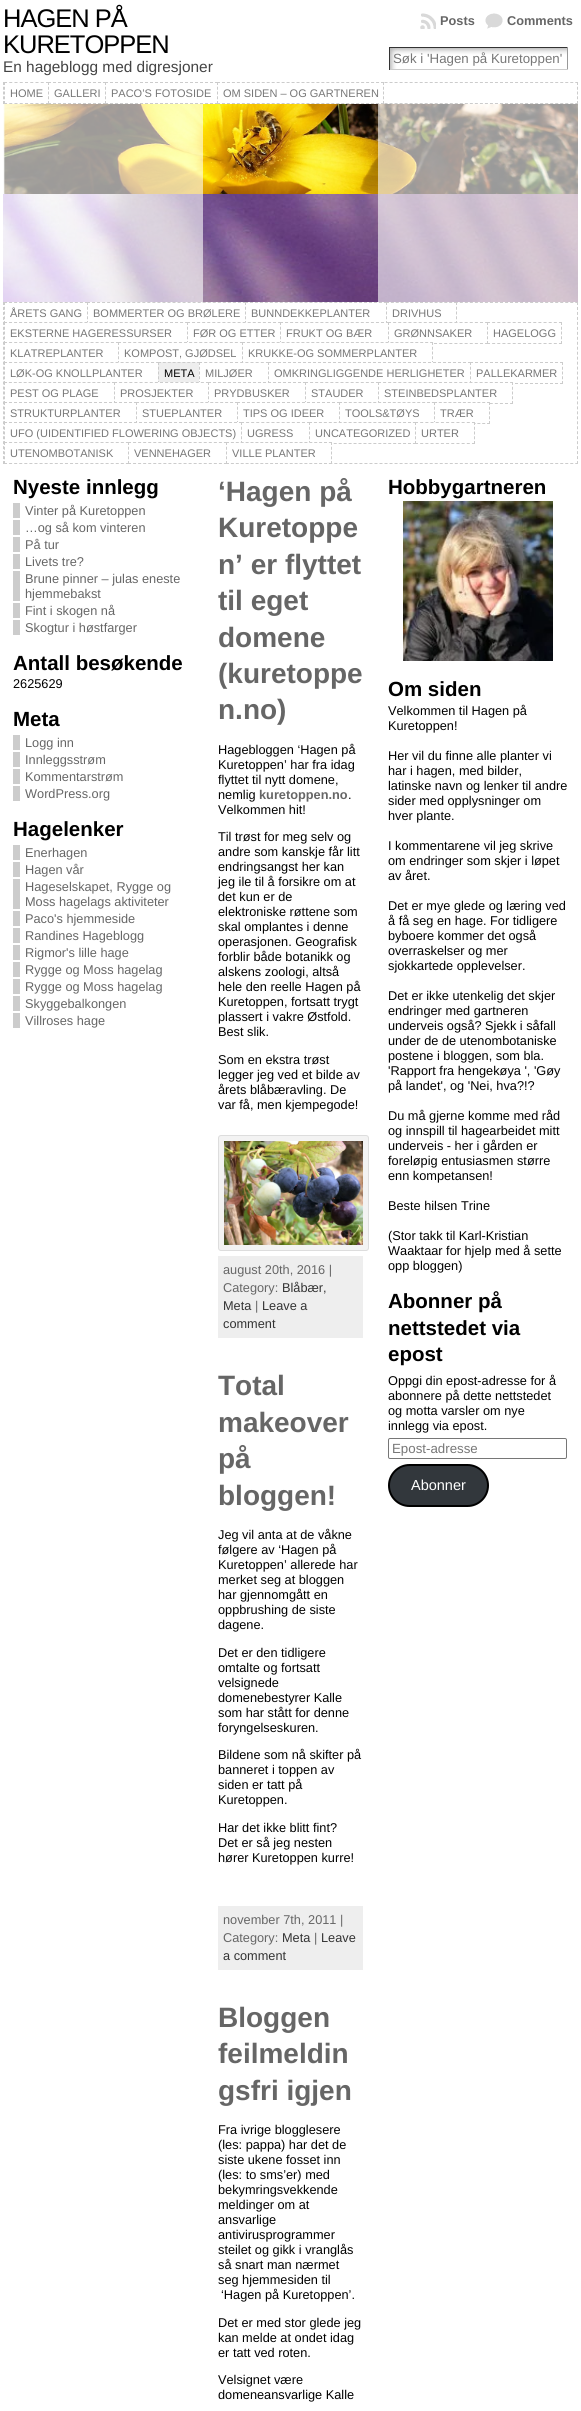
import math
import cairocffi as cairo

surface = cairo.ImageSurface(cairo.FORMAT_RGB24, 581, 2411)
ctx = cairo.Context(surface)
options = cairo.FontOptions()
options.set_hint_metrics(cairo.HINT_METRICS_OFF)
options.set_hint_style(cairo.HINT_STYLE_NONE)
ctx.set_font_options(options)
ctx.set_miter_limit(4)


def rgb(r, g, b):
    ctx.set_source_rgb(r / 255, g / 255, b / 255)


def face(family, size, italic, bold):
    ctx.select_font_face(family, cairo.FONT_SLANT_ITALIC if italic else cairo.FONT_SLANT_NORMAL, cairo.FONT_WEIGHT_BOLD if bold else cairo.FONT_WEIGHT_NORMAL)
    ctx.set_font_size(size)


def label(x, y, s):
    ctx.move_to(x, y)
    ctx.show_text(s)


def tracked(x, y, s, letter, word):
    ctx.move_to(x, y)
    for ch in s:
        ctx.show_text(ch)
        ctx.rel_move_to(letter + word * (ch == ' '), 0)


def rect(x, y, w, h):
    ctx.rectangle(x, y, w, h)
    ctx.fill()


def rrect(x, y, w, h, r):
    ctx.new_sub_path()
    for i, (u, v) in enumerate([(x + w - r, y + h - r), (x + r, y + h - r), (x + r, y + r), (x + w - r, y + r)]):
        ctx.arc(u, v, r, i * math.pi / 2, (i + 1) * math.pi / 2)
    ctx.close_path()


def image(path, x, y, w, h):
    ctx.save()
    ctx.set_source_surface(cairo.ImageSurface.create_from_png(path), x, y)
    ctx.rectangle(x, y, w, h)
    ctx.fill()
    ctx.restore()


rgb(255, 255, 255)
ctx.paint()
face('Liberation Sans', 25.5, 0, 0)
rgb(0, 0, 0)
tracked(3, 27, 'HAGEN PÅ', -1, 0)
tracked(3, 53, 'KURETOPPEN', -1, 0)
face('Liberation Sans', 15.4, 0, 0)
rgb(68, 68, 68)
label(3, 72, 'En hageblogg med digresjoner')
image('image0.png', 420, 13, 16, 16)
face('Liberation Sans', 12.75, 0, 1)
rgb(102, 102, 102)
label(440, 25, 'Posts')
image('image1.png', 485, 13, 18, 16)
label(507, 25, 'Comments')
image('image2.png', 390, 48, 177, 21)
rgb(51, 51, 51)
rect(389, 47, 179, 1)
rgb(153, 153, 153)
rect(567, 47, 1, 23)
rgb(204, 204, 204)
rect(389, 69, 179, 1)
rgb(51, 51, 51)
rect(389, 47, 1, 23)
face('Liberation Sans', 13.3, 0, 0)
rgb(119, 119, 119)
label(393, 63, 'Søk i \'Hagen på Kuretoppen\'')
ctx.new_path()
ctx.move_to(3, 82.5)
ctx.line_to(578, 82.5)
rgb(204, 204, 204)
ctx.set_line_width(1)
ctx.set_dash([3, 2.02])
ctx.stroke()
ctx.new_path()
ctx.move_to(577.5, 82)
ctx.line_to(577.5, 104)
ctx.set_dash([3, 1.75])
ctx.stroke()
ctx.new_path()
ctx.move_to(3, 103.5)
ctx.line_to(578, 103.5)
ctx.set_dash([3, 2.02])
ctx.stroke()
ctx.new_path()
ctx.move_to(3.5, 82)
ctx.line_to(3.5, 104)
ctx.set_dash([3, 1.75])
ctx.stroke()
rgb(255, 255, 255)
rect(4, 82, 43, 22)
ctx.new_path()
ctx.move_to(4, 82.5)
ctx.line_to(49, 82.5)
ctx.move_to(4, 103.5)
ctx.line_to(49, 103.5)
rgb(204, 204, 204)
ctx.set_dash([3, 2.25])
ctx.stroke()
ctx.new_path()
ctx.move_to(4.5, 82)
ctx.line_to(4.5, 104)
ctx.set_dash([3, 1.75])
ctx.stroke()
face('Liberation Sans', 11, 0, 0)
rgb(119, 119, 119)
label(10, 97, 'HOME')
rgb(255, 255, 255)
rect(48, 82, 57, 22)
ctx.new_path()
ctx.move_to(48, 82.5)
ctx.line_to(106, 82.5)
ctx.move_to(48, 103.5)
ctx.line_to(106, 103.5)
rgb(204, 204, 204)
ctx.set_dash([3, 2])
ctx.stroke()
ctx.new_path()
ctx.move_to(48.5, 82)
ctx.line_to(48.5, 104)
ctx.set_dash([3, 1.75])
ctx.stroke()
rgb(119, 119, 119)
label(54, 97, 'GALLERI')
rgb(255, 255, 255)
rect(105, 82, 112, 22)
ctx.new_path()
ctx.move_to(105, 82.5)
ctx.line_to(218, 82.5)
rgb(204, 204, 204)
ctx.set_dash([3, 2])
ctx.stroke()
ctx.new_path()
ctx.move_to(105, 103.5)
ctx.line_to(218, 103.5)
ctx.stroke()
ctx.new_path()
ctx.move_to(105.5, 82)
ctx.line_to(105.5, 104)
ctx.set_dash([3, 1.75])
ctx.stroke()
rgb(119, 119, 119)
label(111, 97, 'PACO’S FOTOSIDE')
rgb(255, 255, 255)
rect(217, 82, 166, 22)
ctx.new_path()
ctx.move_to(217, 82.5)
ctx.line_to(384, 82.5)
rgb(204, 204, 204)
ctx.set_dash([3, 1.97])
ctx.stroke()
ctx.new_path()
ctx.move_to(383.5, 82)
ctx.line_to(383.5, 104)
ctx.set_dash([3, 1.75])
ctx.stroke()
ctx.new_path()
ctx.move_to(217, 103.5)
ctx.line_to(384, 103.5)
ctx.set_dash([3, 1.97])
ctx.stroke()
ctx.new_path()
ctx.move_to(217.5, 82)
ctx.line_to(217.5, 104)
ctx.set_dash([3, 1.75])
ctx.stroke()
rgb(119, 119, 119)
label(223, 97, 'OM SIDEN – OG GARTNEREN')
image('image3.png', 3, 194, 575, 108)
image('image4.png', 3, 104, 575, 90)
ctx.set_source_rgba(1, 1, 1, 0.6)
rect(3, 104, 200, 198)
rect(378, 104, 200, 198)
ctx.new_path()
ctx.move_to(3, 302.5)
ctx.line_to(578, 302.5)
rgb(204, 204, 204)
ctx.set_dash([3, 2.02])
ctx.stroke()
ctx.new_path()
ctx.move_to(577.5, 302)
ctx.line_to(577.5, 464)
ctx.set_dash([3, 1.97])
ctx.stroke()
ctx.new_path()
ctx.move_to(3, 463.5)
ctx.line_to(578, 463.5)
ctx.set_dash([3, 2.02])
ctx.stroke()
ctx.new_path()
ctx.move_to(3.5, 302)
ctx.line_to(3.5, 464)
ctx.set_dash([3, 1.97])
ctx.stroke()
rgb(255, 255, 255)
rect(4, 302, 83, 1)
ctx.new_path()
ctx.move_to(4, 302.5)
ctx.line_to(88, 302.5)
rgb(204, 204, 204)
ctx.set_dash([3, 2.06])
ctx.stroke()
ctx.new_path()
ctx.move_to(4.5, 302)
ctx.line_to(4.5, 324)
ctx.set_dash([3, 1.75])
ctx.stroke()
rgb(119, 119, 119)
label(10, 317, 'ÅRETS GANG')
rgb(255, 255, 255)
rect(87, 302, 158, 1)
ctx.new_path()
ctx.move_to(87, 302.5)
ctx.line_to(246, 302.5)
rgb(204, 204, 204)
ctx.set_dash([3, 2.03])
ctx.stroke()
ctx.new_path()
ctx.move_to(87.5, 302)
ctx.line_to(87.5, 324)
ctx.set_dash([3, 1.75])
ctx.stroke()
rgb(119, 119, 119)
label(93, 317, 'BOMMERTER OG BRØLERE')
rgb(255, 255, 255)
rect(245, 302, 141, 1)
ctx.new_path()
ctx.move_to(245, 302.5)
ctx.line_to(387, 302.5)
rgb(204, 204, 204)
ctx.set_dash([3, 1.96])
ctx.stroke()
ctx.new_path()
ctx.move_to(245.5, 302)
ctx.line_to(245.5, 324)
ctx.set_dash([3, 1.75])
ctx.stroke()
rgb(119, 119, 119)
label(251, 317, 'BUNNDEKKEPLANTER')
rgb(255, 255, 255)
rect(386, 302, 71, 1)
ctx.new_path()
ctx.move_to(386, 302.5)
ctx.line_to(457, 302.5)
rgb(204, 204, 204)
ctx.set_dash([3, 1.86])
ctx.stroke()
ctx.new_path()
ctx.move_to(456.5, 302)
ctx.line_to(456.5, 324)
ctx.set_dash([3, 1.75])
ctx.stroke()
ctx.new_path()
ctx.move_to(386.5, 302)
ctx.line_to(386.5, 324)
ctx.stroke()
rgb(119, 119, 119)
label(392, 317, 'DRIVHUS')
rgb(255, 255, 255)
rect(4, 322, 84, 2)
ctx.new_path()
ctx.move_to(4, 322.5)
ctx.line_to(188, 322.5)
rgb(204, 204, 204)
ctx.set_dash([3, 2.03])
ctx.stroke()
ctx.new_path()
ctx.move_to(4.5, 322)
ctx.line_to(4.5, 344)
ctx.set_dash([3, 1.75])
ctx.stroke()
rgb(119, 119, 119)
label(10, 337, 'EKSTERNE HAGERESSURSER')
rgb(255, 255, 255)
rect(187, 322, 59, 2)
ctx.new_path()
ctx.move_to(187, 322.5)
ctx.line_to(281, 322.5)
rgb(204, 204, 204)
ctx.set_dash([3, 2.06])
ctx.stroke()
ctx.new_path()
ctx.move_to(187.5, 322)
ctx.line_to(187.5, 344)
ctx.set_dash([3, 1.75])
ctx.stroke()
rgb(119, 119, 119)
label(193, 337, 'FØR OG ETTER')
rgb(255, 255, 255)
rect(280, 322, 107, 2)
ctx.new_path()
ctx.move_to(280, 322.5)
ctx.line_to(389, 322.5)
rgb(204, 204, 204)
ctx.set_dash([3, 2.05])
ctx.stroke()
ctx.new_path()
ctx.move_to(280.5, 322)
ctx.line_to(280.5, 344)
ctx.set_dash([3, 1.75])
ctx.stroke()
rgb(119, 119, 119)
label(286, 337, 'FRUKT OG BÆR')
rgb(255, 255, 255)
rect(388, 322, 69, 2)
ctx.new_path()
ctx.move_to(388, 322.5)
ctx.line_to(488, 322.5)
rgb(204, 204, 204)
ctx.set_dash([3, 2.11])
ctx.stroke()
ctx.new_path()
ctx.move_to(388, 343.5)
ctx.line_to(488, 343.5)
ctx.stroke()
ctx.new_path()
ctx.move_to(388.5, 322)
ctx.line_to(388.5, 344)
ctx.set_dash([3, 1.75])
ctx.stroke()
rgb(119, 119, 119)
label(394, 337, 'GRØNNSAKER')
rgb(255, 255, 255)
rect(487, 322, 1, 22)
ctx.new_path()
ctx.move_to(487, 322.5)
ctx.line_to(562, 322.5)
rgb(204, 204, 204)
ctx.set_dash([3, 2.14])
ctx.stroke()
ctx.new_path()
ctx.move_to(561.5, 322)
ctx.line_to(561.5, 344)
ctx.set_dash([3, 1.75])
ctx.stroke()
ctx.new_path()
ctx.move_to(487, 343.5)
ctx.line_to(562, 343.5)
ctx.set_dash([3, 2.14])
ctx.stroke()
ctx.new_path()
ctx.move_to(487.5, 322)
ctx.line_to(487.5, 344)
ctx.set_dash([3, 1.75])
ctx.stroke()
rgb(119, 119, 119)
label(493, 337, 'HAGELOGG')
rgb(255, 255, 255)
rect(4, 342, 1, 2)
ctx.new_path()
ctx.move_to(4, 342.5)
ctx.line_to(119, 342.5)
rgb(204, 204, 204)
ctx.set_dash([3, 2.09])
ctx.stroke()
ctx.new_path()
ctx.move_to(4.5, 342)
ctx.line_to(4.5, 364)
ctx.set_dash([3, 1.75])
ctx.stroke()
rgb(119, 119, 119)
label(10, 357, 'KLATREPLANTER')
rgb(255, 255, 255)
rect(118, 342, 70, 2)
ctx.new_path()
ctx.move_to(118, 342.5)
ctx.line_to(243, 342.5)
rgb(204, 204, 204)
ctx.set_dash([3, 2.08])
ctx.stroke()
ctx.new_path()
ctx.move_to(118.5, 342)
ctx.line_to(118.5, 364)
ctx.set_dash([3, 1.75])
ctx.stroke()
rgb(119, 119, 119)
label(124, 357, 'KOMPOST, GJØDSEL')
rgb(255, 255, 255)
rect(242, 342, 190, 2)
ctx.new_path()
ctx.move_to(242, 342.5)
ctx.line_to(433, 342.5)
rgb(204, 204, 204)
ctx.set_dash([3, 1.95])
ctx.stroke()
ctx.new_path()
ctx.move_to(432.5, 342)
ctx.line_to(432.5, 364)
ctx.set_dash([3, 1.75])
ctx.stroke()
ctx.new_path()
ctx.move_to(242.5, 342)
ctx.line_to(242.5, 364)
ctx.stroke()
rgb(119, 119, 119)
label(248, 357, 'KRUKKE-OG SOMMERPLANTER')
rgb(255, 255, 255)
rect(4, 362, 115, 2)
ctx.new_path()
ctx.move_to(4, 362.5)
ctx.line_to(159, 362.5)
rgb(204, 204, 204)
ctx.set_dash([3, 2.07])
ctx.stroke()
ctx.new_path()
ctx.move_to(4.5, 362)
ctx.line_to(4.5, 384)
ctx.set_dash([3, 1.75])
ctx.stroke()
rgb(119, 119, 119)
label(10, 377, 'LØK-OG KNOLLPLANTER')
rgb(238, 238, 238)
rect(158, 362, 41, 20)
ctx.new_path()
ctx.move_to(158, 362.5)
ctx.line_to(200, 362.5)
rgb(204, 204, 204)
ctx.set_dash([3, 1.88])
ctx.stroke()
ctx.new_path()
ctx.move_to(158.5, 362)
ctx.line_to(158.5, 384)
ctx.set_dash([3, 1.75])
ctx.stroke()
rgb(0, 0, 0)
label(164, 377, 'META')
rgb(255, 255, 255)
rect(199, 362, 44, 2)
ctx.new_path()
ctx.move_to(199, 362.5)
ctx.line_to(269, 362.5)
rgb(204, 204, 204)
ctx.set_dash([3, 2.15])
ctx.stroke()
ctx.new_path()
ctx.move_to(199.5, 362)
ctx.line_to(199.5, 384)
ctx.set_dash([3, 1.75])
ctx.stroke()
rgb(119, 119, 119)
label(205, 377, 'MILJØER')
rgb(255, 255, 255)
rect(268, 362, 165, 2)
ctx.new_path()
ctx.move_to(268, 362.5)
ctx.line_to(471, 362.5)
rgb(204, 204, 204)
ctx.set_dash([3, 2])
ctx.stroke()
ctx.new_path()
ctx.move_to(268.5, 362)
ctx.line_to(268.5, 384)
ctx.set_dash([3, 1.75])
ctx.stroke()
rgb(119, 119, 119)
label(274, 377, 'OMKRINGLIGGENDE HERLIGHETER')
rgb(255, 255, 255)
rect(470, 362, 1, 1)
ctx.new_path()
ctx.move_to(470, 362.5)
ctx.line_to(563, 362.5)
rgb(204, 204, 204)
ctx.set_dash([3, 2])
ctx.stroke()
ctx.new_path()
ctx.move_to(562.5, 362)
ctx.line_to(562.5, 384)
ctx.set_dash([3, 1.75])
ctx.stroke()
ctx.new_path()
ctx.move_to(470, 383.5)
ctx.line_to(563, 383.5)
ctx.set_dash([3, 2])
ctx.stroke()
ctx.new_path()
ctx.move_to(470.5, 362)
ctx.line_to(470.5, 384)
ctx.set_dash([3, 1.75])
ctx.stroke()
rgb(119, 119, 119)
label(476, 377, 'PALLEKARMER')
rgb(255, 255, 255)
rect(4, 382, 1, 2)
ctx.new_path()
ctx.move_to(4, 382.5)
ctx.line_to(115, 382.5)
rgb(204, 204, 204)
ctx.set_dash([3, 1.91])
ctx.stroke()
ctx.new_path()
ctx.move_to(4.5, 382)
ctx.line_to(4.5, 404)
ctx.set_dash([3, 1.75])
ctx.stroke()
rgb(119, 119, 119)
label(10, 397, 'PEST OG PLAGE')
rgb(255, 255, 255)
rect(114, 382, 86, 2)
ctx.new_path()
ctx.move_to(114, 382.5)
ctx.line_to(209, 382.5)
rgb(204, 204, 204)
ctx.set_dash([3, 2.11])
ctx.stroke()
ctx.new_path()
ctx.move_to(114.5, 382)
ctx.line_to(114.5, 404)
ctx.set_dash([3, 1.75])
ctx.stroke()
rgb(119, 119, 119)
label(120, 397, 'PROSJEKTER')
rgb(255, 255, 255)
rect(208, 382, 61, 2)
ctx.new_path()
ctx.move_to(208, 382.5)
ctx.line_to(306, 382.5)
rgb(204, 204, 204)
ctx.set_dash([3, 2])
ctx.stroke()
ctx.new_path()
ctx.move_to(208.5, 382)
ctx.line_to(208.5, 404)
ctx.set_dash([3, 1.75])
ctx.stroke()
rgb(119, 119, 119)
label(214, 397, 'PRYDBUSKER')
rgb(255, 255, 255)
rect(305, 382, 1, 1)
ctx.new_path()
ctx.move_to(305, 382.5)
ctx.line_to(379, 382.5)
rgb(204, 204, 204)
ctx.set_dash([3, 2.07])
ctx.stroke()
ctx.new_path()
ctx.move_to(305.5, 382)
ctx.line_to(305.5, 404)
ctx.set_dash([3, 1.75])
ctx.stroke()
rgb(119, 119, 119)
label(311, 397, 'STAUDER')
rgb(255, 255, 255)
rect(378, 382, 135, 2)
ctx.new_path()
ctx.move_to(378, 382.5)
ctx.line_to(513, 382.5)
rgb(204, 204, 204)
ctx.set_dash([3, 2.08])
ctx.stroke()
ctx.new_path()
ctx.move_to(512.5, 382)
ctx.line_to(512.5, 404)
ctx.set_dash([3, 1.75])
ctx.stroke()
ctx.new_path()
ctx.move_to(378, 403.5)
ctx.line_to(513, 403.5)
ctx.set_dash([3, 2.08])
ctx.stroke()
ctx.new_path()
ctx.move_to(378.5, 382)
ctx.line_to(378.5, 404)
ctx.set_dash([3, 1.75])
ctx.stroke()
rgb(119, 119, 119)
label(384, 397, 'STEINBEDSPLANTER')
rgb(255, 255, 255)
rect(4, 402, 111, 2)
ctx.new_path()
ctx.move_to(4, 402.5)
ctx.line_to(137, 402.5)
rgb(204, 204, 204)
ctx.set_dash([3, 2])
ctx.stroke()
ctx.new_path()
ctx.move_to(4.5, 402)
ctx.line_to(4.5, 424)
ctx.set_dash([3, 1.75])
ctx.stroke()
rgb(119, 119, 119)
label(10, 417, 'STRUKTURPLANTER')
rgb(255, 255, 255)
rect(136, 402, 73, 2)
ctx.new_path()
ctx.move_to(136, 402.5)
ctx.line_to(238, 402.5)
rgb(204, 204, 204)
ctx.set_dash([3, 1.95])
ctx.stroke()
ctx.new_path()
ctx.move_to(136.5, 402)
ctx.line_to(136.5, 424)
ctx.set_dash([3, 1.75])
ctx.stroke()
rgb(119, 119, 119)
label(142, 417, 'STUEPLANTER')
rgb(255, 255, 255)
rect(237, 402, 69, 2)
ctx.new_path()
ctx.move_to(237, 402.5)
ctx.line_to(340, 402.5)
rgb(204, 204, 204)
ctx.set_dash([3, 2])
ctx.stroke()
ctx.new_path()
ctx.move_to(237.5, 402)
ctx.line_to(237.5, 424)
ctx.set_dash([3, 1.75])
ctx.stroke()
rgb(119, 119, 119)
label(243, 417, 'TIPS OG IDEER')
rgb(255, 255, 255)
rect(339, 402, 95, 2)
ctx.new_path()
ctx.move_to(339, 402.5)
ctx.line_to(435, 402.5)
rgb(204, 204, 204)
ctx.set_dash([3, 1.89])
ctx.stroke()
ctx.new_path()
ctx.move_to(339.5, 402)
ctx.line_to(339.5, 424)
ctx.set_dash([3, 1.75])
ctx.stroke()
rgb(119, 119, 119)
label(345, 417, 'TOOLS&TØYS')
rgb(255, 255, 255)
rect(434, 402, 56, 2)
ctx.new_path()
ctx.move_to(434, 402.5)
ctx.line_to(490, 402.5)
rgb(204, 204, 204)
ctx.set_dash([3, 1.82])
ctx.stroke()
ctx.new_path()
ctx.move_to(489.5, 402)
ctx.line_to(489.5, 424)
ctx.set_dash([3, 1.75])
ctx.stroke()
ctx.new_path()
ctx.move_to(434, 423.5)
ctx.line_to(490, 423.5)
ctx.set_dash([3, 1.82])
ctx.stroke()
ctx.new_path()
ctx.move_to(434.5, 402)
ctx.line_to(434.5, 424)
ctx.set_dash([3, 1.75])
ctx.stroke()
rgb(119, 119, 119)
label(440, 417, 'TRÆR')
rgb(255, 255, 255)
rect(4, 422, 234, 2)
ctx.new_path()
ctx.move_to(4, 422.5)
ctx.line_to(242, 422.5)
rgb(204, 204, 204)
ctx.set_dash([3, 2])
ctx.stroke()
ctx.new_path()
ctx.move_to(4.5, 422)
ctx.line_to(4.5, 444)
ctx.set_dash([3, 1.75])
ctx.stroke()
rgb(119, 119, 119)
label(10, 437, 'UFO (UIDENTIFIED FLOWERING OBJECTS)')
rgb(255, 255, 255)
rect(241, 422, 1, 1)
ctx.new_path()
ctx.move_to(241, 422.5)
ctx.line_to(310, 422.5)
rgb(204, 204, 204)
ctx.set_dash([3, 2.08])
ctx.stroke()
ctx.new_path()
ctx.move_to(241.5, 422)
ctx.line_to(241.5, 444)
ctx.set_dash([3, 1.75])
ctx.stroke()
rgb(119, 119, 119)
label(247, 437, 'UGRESS')
rgb(255, 255, 255)
rect(309, 422, 31, 2)
ctx.new_path()
ctx.move_to(309, 422.5)
ctx.line_to(416, 422.5)
rgb(204, 204, 204)
ctx.set_dash([3, 1.95])
ctx.stroke()
ctx.new_path()
ctx.move_to(309, 443.5)
ctx.line_to(416, 443.5)
ctx.stroke()
ctx.new_path()
ctx.move_to(309.5, 422)
ctx.line_to(309.5, 444)
ctx.set_dash([3, 1.75])
ctx.stroke()
rgb(119, 119, 119)
label(315, 437, 'UNCATEGORIZED')
rgb(255, 255, 255)
rect(415, 422, 60, 22)
ctx.new_path()
ctx.move_to(415, 422.5)
ctx.line_to(475, 422.5)
rgb(204, 204, 204)
ctx.set_dash([3, 2.18])
ctx.stroke()
ctx.new_path()
ctx.move_to(474.5, 422)
ctx.line_to(474.5, 444)
ctx.set_dash([3, 1.75])
ctx.stroke()
ctx.new_path()
ctx.move_to(415, 443.5)
ctx.line_to(475, 443.5)
ctx.set_dash([3, 2.18])
ctx.stroke()
ctx.new_path()
ctx.move_to(415.5, 422)
ctx.line_to(415.5, 444)
ctx.set_dash([3, 1.75])
ctx.stroke()
rgb(119, 119, 119)
label(421, 437, 'URTER')
rgb(255, 255, 255)
rect(4, 442, 123, 22)
ctx.new_path()
ctx.move_to(4, 442.5)
ctx.line_to(129, 442.5)
rgb(204, 204, 204)
ctx.set_dash([3, 2.08])
ctx.stroke()
ctx.new_path()
ctx.move_to(4, 463.5)
ctx.line_to(129, 463.5)
ctx.stroke()
ctx.new_path()
ctx.move_to(4.5, 442)
ctx.line_to(4.5, 464)
ctx.set_dash([3, 1.75])
ctx.stroke()
rgb(119, 119, 119)
label(10, 457, 'UTENOMBOTANISK')
rgb(255, 255, 255)
rect(128, 442, 98, 22)
ctx.new_path()
ctx.move_to(128, 442.5)
ctx.line_to(227, 442.5)
rgb(204, 204, 204)
ctx.set_dash([3, 2.05])
ctx.stroke()
ctx.new_path()
ctx.move_to(128, 463.5)
ctx.line_to(227, 463.5)
ctx.stroke()
ctx.new_path()
ctx.move_to(128.5, 442)
ctx.line_to(128.5, 464)
ctx.set_dash([3, 1.75])
ctx.stroke()
rgb(119, 119, 119)
label(134, 457, 'VENNEHAGER')
rgb(255, 255, 255)
rect(226, 442, 106, 22)
ctx.new_path()
ctx.move_to(226, 442.5)
ctx.line_to(332, 442.5)
rgb(204, 204, 204)
ctx.set_dash([3, 1.9])
ctx.stroke()
ctx.new_path()
ctx.move_to(331.5, 442)
ctx.line_to(331.5, 464)
ctx.set_dash([3, 1.75])
ctx.stroke()
ctx.new_path()
ctx.move_to(226, 463.5)
ctx.line_to(332, 463.5)
ctx.set_dash([3, 1.9])
ctx.stroke()
ctx.new_path()
ctx.move_to(226.5, 442)
ctx.line_to(226.5, 464)
ctx.set_dash([3, 1.75])
ctx.stroke()
rgb(119, 119, 119)
label(232, 457, 'VILLE PLANTER')
face('Liberation Sans', 20.5, 0, 1)
rgb(0, 0, 0)
label(13, 494, 'Nyeste innlegg')
rgb(204, 204, 204)
rect(13, 503, 7, 15)
face('Liberation Sans', 12.75, 0, 0)
rgb(102, 102, 102)
label(25, 515, 'Vinter på Kuretoppen')
rgb(204, 204, 204)
rect(13, 520, 7, 15)
rgb(102, 102, 102)
label(25, 532, '…og så kom vinteren')
rgb(204, 204, 204)
rect(13, 537, 7, 15)
rgb(102, 102, 102)
label(25, 549, 'På tur')
rgb(204, 204, 204)
rect(13, 554, 7, 15)
rgb(102, 102, 102)
label(25, 566, 'Livets tre?')
rgb(204, 204, 204)
rect(13, 571, 7, 30)
rgb(102, 102, 102)
label(25, 583, 'Brune pinner – julas eneste')
label(25, 598, 'hjemmebakst')
rgb(204, 204, 204)
rect(13, 603, 7, 15)
rgb(102, 102, 102)
label(25, 615, 'Fint i skogen nå')
rgb(204, 204, 204)
rect(13, 620, 7, 15)
rgb(102, 102, 102)
label(25, 632, 'Skogtur i høstfarger')
face('Liberation Sans', 20.5, 0, 1)
rgb(0, 0, 0)
label(13, 670, 'Antall besøkende')
face('Liberation Sans', 12.75, 0, 0)
label(13, 688, '2625629')
face('Liberation Sans', 20.5, 0, 1)
label(13, 726, 'Meta')
rgb(204, 204, 204)
rect(13, 735, 7, 15)
face('Liberation Sans', 12.75, 0, 0)
rgb(102, 102, 102)
label(25, 747, 'Logg inn')
rgb(204, 204, 204)
rect(13, 752, 7, 15)
rgb(102, 102, 102)
label(25, 764, 'Innleggsstrøm')
rgb(204, 204, 204)
rect(13, 769, 7, 15)
rgb(102, 102, 102)
label(25, 781, 'Kommentarstrøm')
rgb(204, 204, 204)
rect(13, 786, 7, 15)
rgb(102, 102, 102)
label(25, 798, 'WordPress.org')
face('Liberation Sans', 20.5, 0, 1)
rgb(0, 0, 0)
label(13, 836, 'Hagelenker')
rgb(204, 204, 204)
rect(13, 845, 7, 15)
face('Liberation Sans', 12.75, 0, 0)
rgb(102, 102, 102)
label(25, 857, 'Enerhagen')
rgb(204, 204, 204)
rect(13, 862, 7, 15)
rgb(102, 102, 102)
label(25, 874, 'Hagen vår')
rgb(204, 204, 204)
rect(13, 879, 7, 30)
rgb(102, 102, 102)
label(25, 891, 'Hageselskapet, Rygge og')
label(25, 906, 'Moss hagelags aktiviteter')
rgb(204, 204, 204)
rect(13, 911, 7, 15)
rgb(102, 102, 102)
label(25, 923, 'Paco\'s hjemmeside')
rgb(204, 204, 204)
rect(13, 928, 7, 15)
rgb(102, 102, 102)
label(25, 940, 'Randines Hageblogg')
rgb(204, 204, 204)
rect(13, 945, 7, 15)
rgb(102, 102, 102)
label(25, 957, 'Rigmor\'s lille hage')
rgb(204, 204, 204)
rect(13, 962, 7, 15)
rgb(102, 102, 102)
label(25, 974, 'Rygge og Moss hagelag')
rgb(204, 204, 204)
rect(13, 979, 7, 15)
rgb(102, 102, 102)
label(25, 991, 'Rygge og Moss hagelag')
rgb(204, 204, 204)
rect(13, 996, 7, 15)
rgb(102, 102, 102)
label(25, 1008, 'Skyggebalkongen')
rgb(204, 204, 204)
rect(13, 1013, 7, 15)
rgb(102, 102, 102)
label(25, 1025, 'Villroses hage')
face('Liberation Sans', 28, 0, 1)
label(218, 501, '‘Hagen på')
label(218, 537, 'Kuretoppe')
label(218, 574, 'n’ er flyttet')
label(218, 610, 'til eget')
label(218, 647, 'domene')
label(218, 683, '(kuretoppe')
label(218, 719, 'n.no)')
face('Liberation Sans', 12.75, 0, 0)
rgb(0, 0, 0)
label(218, 754, 'Hagebloggen ‘Hagen på')
label(218, 769, 'Kuretoppen’ har fra idag')
label(218, 784, 'flyttet til nytt domene,')
label(218, 799, 'nemlig')
face('Liberation Sans', 12.75, 0, 1)
rgb(102, 102, 102)
label(259, 799, 'kuretoppen.no')
face('Liberation Sans', 12.75, 0, 0)
rgb(0, 0, 0)
label(348, 799, '.')
label(218, 814, 'Velkommen hit!')
label(218, 841, 'Til trøst for meg selv og')
label(218, 856, 'andre som kanskje får litt')
label(218, 871, 'endringsangst her kan')
label(218, 886, 'jeg ile til å forsikre om at')
label(218, 901, 'det kun er de')
label(218, 916, 'elektroniske røttene som')
label(218, 931, 'skal omplantes i denne')
label(218, 946, 'operasjonen. Geografisk')
label(218, 961, 'forblir både botanikk og')
label(218, 976, 'alskens zoologi, altså')
label(218, 991, 'hele den reelle Hagen på')
label(218, 1006, 'Kuretoppen, fortsatt trygt')
label(218, 1021, 'plassert i vakre Østfold.')
label(218, 1036, 'Best slik.')
label(218, 1064, 'Som en ekstra trøst')
label(218, 1079, 'legger jeg ved et bilde av')
label(218, 1094, 'årets blåbæravling. De')
label(218, 1109, 'var få, men kjempegode!')
rgb(243, 243, 243)
rrect(218.5, 1135.5, 150, 115, 2.5)
ctx.fill_preserve()
rgb(221, 221, 221)
ctx.set_dash([])
ctx.stroke()
image('image5.png', 224, 1141, 139, 104)
rgb(238, 238, 238)
rect(218, 1256, 145, 82)
rgb(102, 102, 102)
label(223, 1274, 'august 20th, 2016 |')
label(223, 1292, 'Category:')
rgb(51, 51, 51)
label(282, 1292, 'Blåbær,')
label(223, 1310, 'Meta')
rgb(102, 102, 102)
label(255, 1310, '|')
rgb(51, 51, 51)
label(262, 1310, 'Leave a')
label(223, 1328, 'comment')
face('Liberation Sans', 28, 0, 1)
rgb(102, 102, 102)
label(218, 1395, 'Total')
label(218, 1432, 'makeover')
label(218, 1468, 'på')
label(218, 1505, 'bloggen!')
face('Liberation Sans', 12.75, 0, 0)
rgb(0, 0, 0)
label(218, 1539, 'Jeg vil anta at de våkne')
label(218, 1554, 'følgere av ‘Hagen på')
label(218, 1569, 'Kuretoppen’ allerede har')
label(218, 1584, 'merket seg at bloggen')
label(218, 1599, 'har gjennomgått en')
label(218, 1614, 'oppbrushing de siste')
label(218, 1629, 'dagene.')
label(218, 1657, 'Det er den tidligere')
label(218, 1672, 'omtalte og fortsatt')
label(218, 1687, 'velsignede')
label(218, 1702, 'domenebestyrer Kalle')
label(218, 1717, 'som har stått for denne')
label(218, 1732, 'foryngelseskuren.')
label(218, 1759, 'Bildene som nå skifter på')
label(218, 1774, 'banneret i toppen av')
label(218, 1789, 'siden er tatt på')
label(218, 1804, 'Kuretoppen.')
label(218, 1832, 'Har det ikke blitt fint?')
label(218, 1847, 'Det er så jeg nesten')
label(218, 1862, 'hører Kuretoppen kurre!')
rgb(238, 238, 238)
rect(218, 1906, 145, 64)
rgb(102, 102, 102)
label(223, 1924, 'november 7th, 2011 |')
label(223, 1942, 'Category:')
rgb(51, 51, 51)
label(282, 1942, 'Meta')
rgb(102, 102, 102)
label(314, 1942, '|')
rgb(51, 51, 51)
label(321, 1942, 'Leave')
label(223, 1960, 'a comment')
face('Liberation Sans', 28, 0, 1)
rgb(102, 102, 102)
label(218, 2027, 'Bloggen')
label(218, 2063, 'feilmeldin')
label(218, 2100, 'gsfri igjen')
face('Liberation Sans', 12.75, 0, 0)
rgb(0, 0, 0)
label(218, 2134, 'Fra ivrige blogglesere')
label(218, 2149, '(les: pappa) har det de')
label(218, 2164, 'siste ukene fosset inn')
label(218, 2179, '(les: to sms’er) med')
label(218, 2194, 'bekymringsvekkende')
label(218, 2209, 'meldinger om at')
label(218, 2224, 'ansvarlige')
label(218, 2239, 'antivirusprogrammer')
label(218, 2254, 'steilet og gikk i vranglås')
label(218, 2269, 'så snart man nærmet')
label(218, 2284, 'seg hjemmesiden til')
label(221, 2299, '‘Hagen på Kuretoppen’.')
label(218, 2327, 'Det er med stor glede jeg')
label(218, 2342, 'kan melde at ondet idag')
label(218, 2357, 'er tatt ved roten.')
label(218, 2384, 'Velsignet være')
label(218, 2399, 'domeneansvarlige Kalle')
face('Liberation Sans', 20.5, 0, 1)
label(388, 494, 'Hobbygartneren')
image('image6.png', 403, 501, 150, 160)
label(388, 696, 'Om siden')
face('Liberation Sans', 12.75, 0, 0)
label(388, 715, 'Velkommen til Hagen på')
label(388, 730, 'Kuretoppen!')
label(388, 760, 'Her vil du finne alle planter vi')
label(388, 775, 'har i hagen, med bilder,')
label(388, 790, 'latinske navn og lenker til andre')
label(388, 805, 'sider med opplysninger om')
label(388, 820, 'hver plante.')
label(388, 850, 'I kommentarene vil jeg skrive')
label(388, 865, 'om endringer som skjer i løpet')
label(388, 880, 'av året.')
label(388, 910, 'Det er mye glede og læring ved')
label(388, 925, 'å få seg en hage. For tidligere')
label(388, 940, 'byboere kommer det også')
label(388, 955, 'overraskelser og mer')
label(388, 970, 'sjokkartede opplevelser.')
label(388, 1000, 'Det er ikke utenkelig det skjer')
label(388, 1015, 'endringer med gartneren')
label(388, 1030, 'underveis også? Sjekk i såfall')
label(388, 1045, 'under de de utenombotaniske')
label(388, 1060, 'postene i bloggen, som bla.')
label(388, 1075, '\'Rapport fra hengekøya \', \'Gøy')
label(388, 1090, 'på landet\', og \'Nei, hva?!?')
label(388, 1120, 'Du må gjerne komme med råd')
label(388, 1135, 'og innspill til hagearbeidet mitt')
label(388, 1150, 'underveis - her i gården er')
label(388, 1165, 'foreløpig entusiasmen større')
label(388, 1180, 'enn kompetansen!')
label(388, 1210, 'Beste hilsen Trine')
label(388, 1240, '(Stor takk til Karl-Kristian')
label(388, 1255, 'Waaktaar for hjelp med å sette')
label(388, 1270, 'opp bloggen)')
face('Liberation Sans', 20.5, 0, 1)
label(388, 1308, 'Abonner på')
label(388, 1335, 'nettstedet via')
label(388, 1361, 'epost')
face('Liberation Sans', 12.75, 0, 0)
label(388, 1385, 'Oppgi din epost-adresse for å')
label(388, 1400, 'abonnere på dette nettstedet')
label(388, 1415, 'og motta varsler om nye')
label(388, 1430, 'innlegg via epost.')
rrect(388.5, 1438.5, 178, 20, 1.5)
rgb(118, 118, 118)
ctx.stroke()
face('Liberation Sans', 13.3, 0, 0)
rgb(119, 119, 119)
label(392, 1453, 'Epost-adresse')
rgb(50, 55, 60)
rrect(389, 1465, 99, 41, 20.5)
ctx.fill_preserve()
rgb(0, 0, 0)
ctx.set_line_width(2)
ctx.stroke()
face('Liberation Sans', 14.5, 0, 0)
rgb(255, 255, 255)
label(411, 1490, 'Abonner')
surface.write_to_png('render.png')
